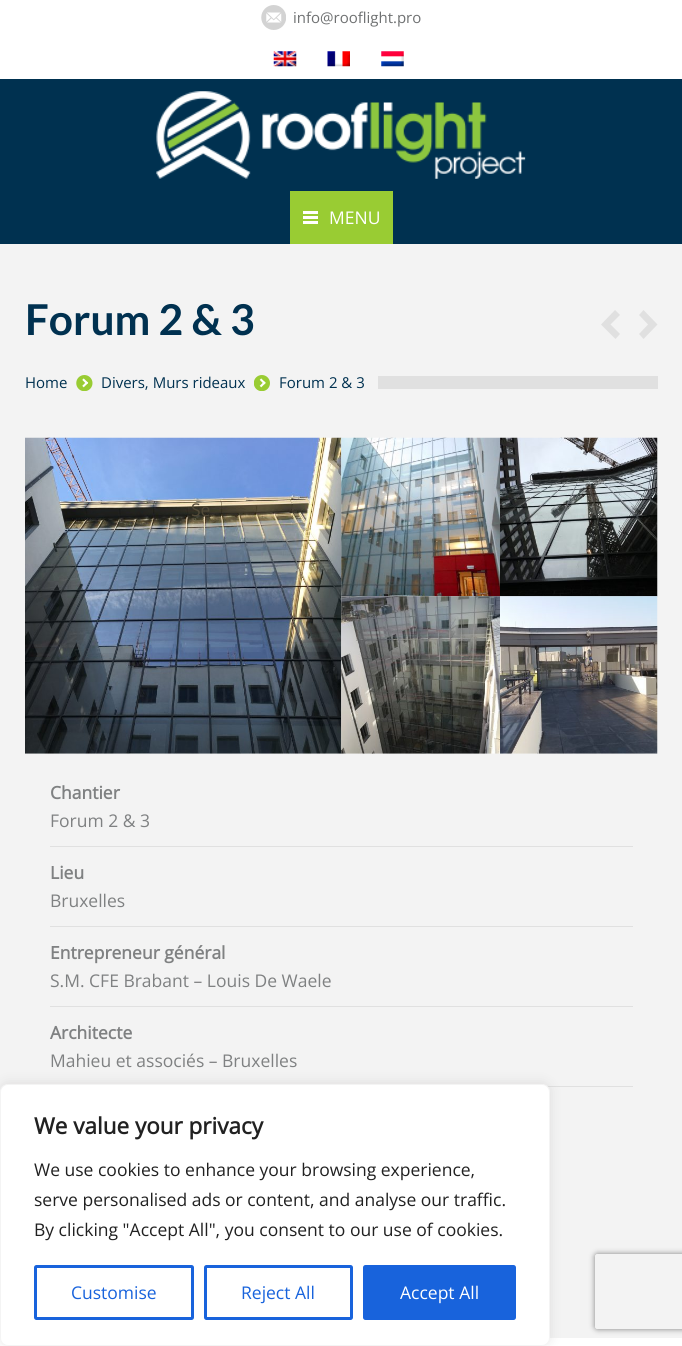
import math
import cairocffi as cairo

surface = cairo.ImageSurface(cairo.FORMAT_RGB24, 682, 1346)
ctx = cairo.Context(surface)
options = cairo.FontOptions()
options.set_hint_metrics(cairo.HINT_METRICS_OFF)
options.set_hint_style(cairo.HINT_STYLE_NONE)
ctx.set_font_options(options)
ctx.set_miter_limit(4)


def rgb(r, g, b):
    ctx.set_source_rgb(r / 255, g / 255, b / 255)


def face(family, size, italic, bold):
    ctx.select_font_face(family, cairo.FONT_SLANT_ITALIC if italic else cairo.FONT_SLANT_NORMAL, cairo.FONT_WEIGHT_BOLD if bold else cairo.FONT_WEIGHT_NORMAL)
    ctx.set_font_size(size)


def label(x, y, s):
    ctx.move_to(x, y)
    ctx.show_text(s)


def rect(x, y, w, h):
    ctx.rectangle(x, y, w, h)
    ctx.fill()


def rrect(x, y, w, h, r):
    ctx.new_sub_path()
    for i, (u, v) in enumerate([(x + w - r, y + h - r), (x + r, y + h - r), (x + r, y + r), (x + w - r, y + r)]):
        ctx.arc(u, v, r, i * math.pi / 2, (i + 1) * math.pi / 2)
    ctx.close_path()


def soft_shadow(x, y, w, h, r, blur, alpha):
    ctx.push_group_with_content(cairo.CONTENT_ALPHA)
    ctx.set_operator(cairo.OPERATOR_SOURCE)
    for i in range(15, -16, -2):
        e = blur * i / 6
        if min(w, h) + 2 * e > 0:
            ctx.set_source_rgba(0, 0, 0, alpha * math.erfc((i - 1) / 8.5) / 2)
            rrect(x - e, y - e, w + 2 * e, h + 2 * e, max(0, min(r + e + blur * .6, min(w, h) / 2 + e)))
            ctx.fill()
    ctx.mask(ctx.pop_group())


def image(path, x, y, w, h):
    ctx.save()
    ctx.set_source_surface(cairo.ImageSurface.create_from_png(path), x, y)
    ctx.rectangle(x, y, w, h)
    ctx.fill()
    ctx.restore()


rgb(243, 243, 243)
ctx.paint()
rgb(255, 255, 255)
rect(0, 0, 682, 79)
image('image0.png', 261, 5, 25, 25)
face('Open Sans', 15, 0, 0)
rgb(111, 113, 114)
label(293, 23, 'info@rooflight.pro')
image('image1.png', 273, 51, 24, 16)
image('image2.png', 327, 51, 23, 16)
image('image3.png', 381, 51, 23, 16)
rgb(0, 49, 80)
rect(0, 79, 682, 165)
image('image4.png', 156, 91, 370, 88)
rgb(153, 204, 51)
rect(290, 191, 103, 53)
rgb(255, 255, 255)
rect(303, 221, 15, 3)
rect(303, 216, 15, 3)
rect(303, 211, 15, 3)
face('Open Sans', 17.5, 0, 0)
label(329, 224, 'MENU')
image('image7.png', 25, 437, 317, 317)
rgb(82, 74, 56)
label(191, 516, 'Se')
face('Lato', 42.5, 0, 1)
rgb(0, 49, 80)
label(25, 335, 'Forum 2 & 3')
rgb(224, 224, 224)
ctx.new_path()
ctx.move_to(610.5, 324.5)
ctx.line_to(620, 315)
ctx.line_to(615, 310)
ctx.line_to(601, 324.5)
ctx.line_to(615.5, 339)
ctx.line_to(620, 334)
ctx.close_path()
ctx.move_to(639, 334)
ctx.line_to(643.5, 339)
ctx.line_to(657.5, 324.5)
ctx.line_to(643.5, 310)
ctx.line_to(639, 315)
ctx.line_to(648, 324.5)
ctx.close_path()
ctx.fill()
face('Open Sans', 15, 0, 0)
rgb(0, 49, 80)
label(25, 388, 'Home')
image('image5.png', 76, 375, 17, 16)
label(101, 388, 'Divers, Murs rideaux')
image('image6.png', 254, 375, 16, 16)
label(279, 388, 'Forum 2 & 3')
rgb(224, 224, 224)
rect(378, 376, 280, 13)
image('image8.png', 341, 437, 159, 160)
image('image9.png', 500, 437, 158, 160)
image('image10.png', 341, 596, 159, 158)
image('image11.png', 500, 596, 158, 158)
face('Open Sans', 17.5, 0, 1)
rgb(127, 129, 130)
label(50, 799, 'Chantier')
face('Open Sans', 17.5, 0, 0)
label(50, 827, 'Forum 2 & 3')
rgb(224, 224, 224)
rect(50, 846, 583, 1)
face('Open Sans', 17.5, 0, 1)
rgb(127, 129, 130)
label(50, 879, 'Lieu')
face('Open Sans', 17.5, 0, 0)
label(50, 907, 'Bruxelles')
rgb(224, 224, 224)
rect(50, 926, 583, 1)
face('Open Sans', 17.5, 0, 1)
rgb(127, 129, 130)
label(50, 959, 'Entrepreneur général')
face('Open Sans', 17.5, 0, 0)
label(50, 987, 'S.M. CFE Brabant – Louis De Waele')
rgb(224, 224, 224)
rect(50, 1006, 583, 1)
face('Open Sans', 17.5, 0, 1)
rgb(127, 129, 130)
label(50, 1039, 'Architecte')
face('Open Sans', 17.5, 0, 0)
label(50, 1067, 'Mahieu et associés – Bruxelles')
rgb(224, 224, 224)
rect(547, 1086, 86, 1)
rgb(255, 255, 255)
rect(0, 1338, 682, 8)
rgb(172, 171, 171)
soft_shadow(0, 1083, 550, 262, 8, 6, 0.3)
rgb(255, 255, 255)
rrect(0.5, 1084.5, 549, 261, 7.5)
ctx.fill_preserve()
rgb(244, 244, 244)
ctx.set_line_width(1)
ctx.stroke()
face('Open Sans', 22.5, 0, 1)
rgb(33, 33, 33)
label(34, 1134, 'We value your privacy')
face('Open Sans', 17.5, 0, 0)
label(34, 1176, 'We use cookies to enhance your browsing experience,')
label(34, 1206, 'serve personalised ads or content, and analyse our traffic.')
label(34, 1236, 'By clicking "Accept All", you consent to our use of cookies.')
rrect(35.5, 1266.5, 157, 52, 1)
rgb(24, 99, 220)
ctx.set_line_width(3)
ctx.stroke()
label(71, 1299, 'Customise')
rrect(205.5, 1266.5, 146, 52, 1)
ctx.stroke()
label(241, 1299, 'Reject All')
rrect(364.5, 1266.5, 150, 52, 1)
ctx.fill_preserve()
ctx.stroke()
rgb(255, 255, 255)
label(400, 1299, 'Accept All')
ctx.save()
ctx.set_fill_rule(cairo.FILL_RULE_EVEN_ODD)
ctx.new_path()
ctx.move_to(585, 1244)
ctx.line_to(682, 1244)
ctx.line_to(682, 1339)
ctx.line_to(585, 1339)
ctx.close_path()
ctx.move_to(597.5, 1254)
ctx.line_to(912.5, 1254)
ctx.curve_to(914, 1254, 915, 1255, 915, 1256.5)
ctx.line_to(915, 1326.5)
ctx.curve_to(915, 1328, 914, 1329, 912.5, 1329)
ctx.line_to(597.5, 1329)
ctx.curve_to(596, 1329, 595, 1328, 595, 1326.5)
ctx.line_to(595, 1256.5)
ctx.curve_to(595, 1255, 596, 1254, 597.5, 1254)
ctx.close_path()
ctx.clip()
rgb(128, 128, 128)
soft_shadow(595, 1254, 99, 75, 2.5, 3, 1)
ctx.restore()
surface.write_to_png('render.png')
